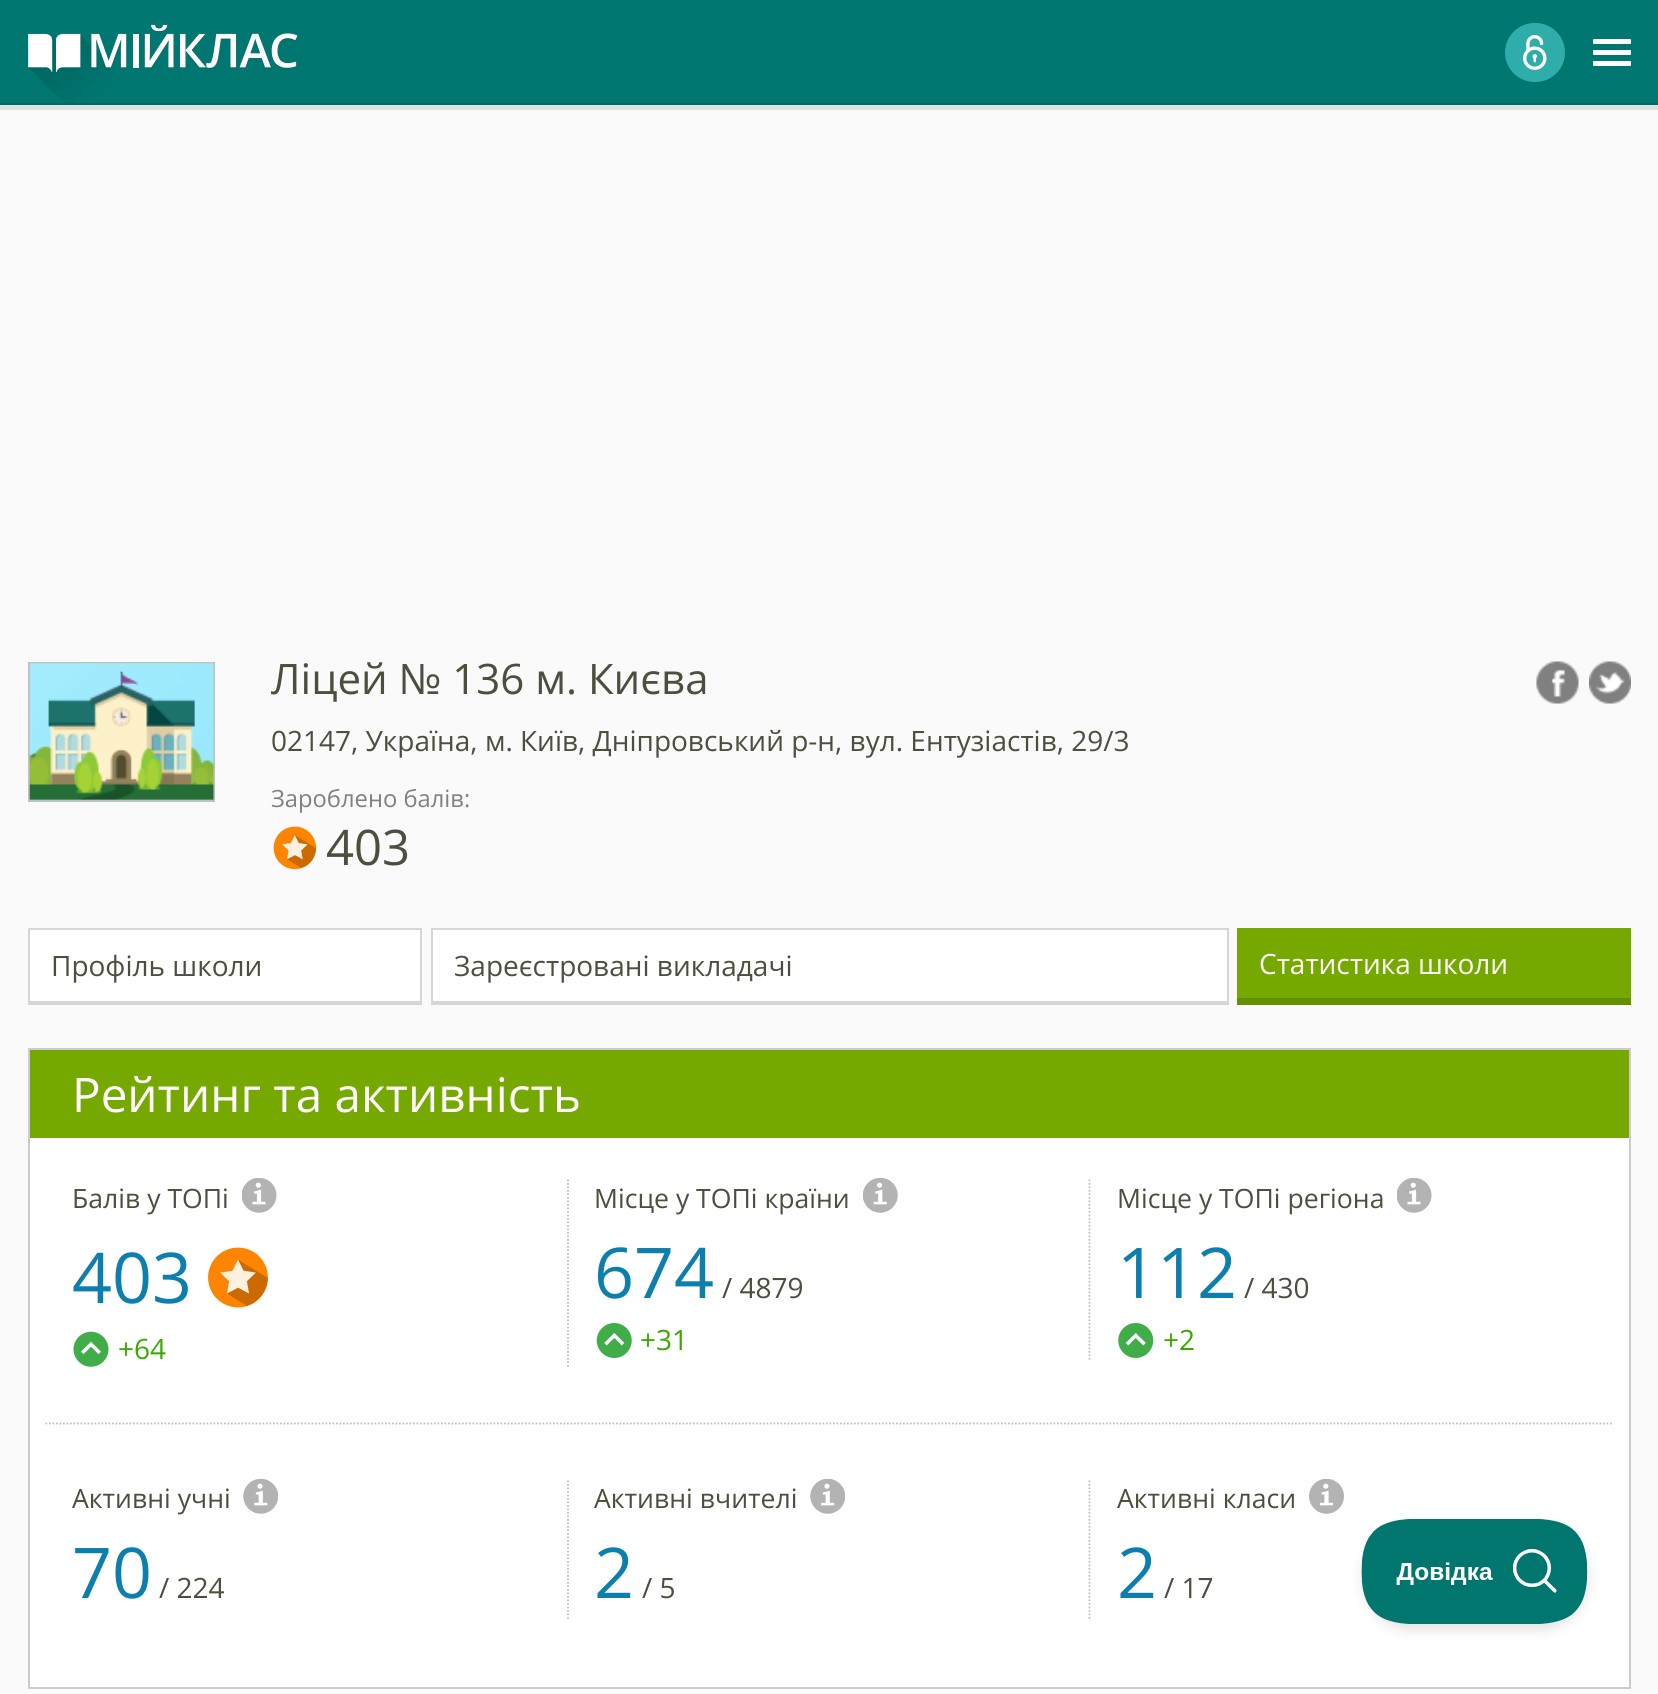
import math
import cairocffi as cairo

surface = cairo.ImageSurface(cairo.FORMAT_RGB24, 1658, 1694)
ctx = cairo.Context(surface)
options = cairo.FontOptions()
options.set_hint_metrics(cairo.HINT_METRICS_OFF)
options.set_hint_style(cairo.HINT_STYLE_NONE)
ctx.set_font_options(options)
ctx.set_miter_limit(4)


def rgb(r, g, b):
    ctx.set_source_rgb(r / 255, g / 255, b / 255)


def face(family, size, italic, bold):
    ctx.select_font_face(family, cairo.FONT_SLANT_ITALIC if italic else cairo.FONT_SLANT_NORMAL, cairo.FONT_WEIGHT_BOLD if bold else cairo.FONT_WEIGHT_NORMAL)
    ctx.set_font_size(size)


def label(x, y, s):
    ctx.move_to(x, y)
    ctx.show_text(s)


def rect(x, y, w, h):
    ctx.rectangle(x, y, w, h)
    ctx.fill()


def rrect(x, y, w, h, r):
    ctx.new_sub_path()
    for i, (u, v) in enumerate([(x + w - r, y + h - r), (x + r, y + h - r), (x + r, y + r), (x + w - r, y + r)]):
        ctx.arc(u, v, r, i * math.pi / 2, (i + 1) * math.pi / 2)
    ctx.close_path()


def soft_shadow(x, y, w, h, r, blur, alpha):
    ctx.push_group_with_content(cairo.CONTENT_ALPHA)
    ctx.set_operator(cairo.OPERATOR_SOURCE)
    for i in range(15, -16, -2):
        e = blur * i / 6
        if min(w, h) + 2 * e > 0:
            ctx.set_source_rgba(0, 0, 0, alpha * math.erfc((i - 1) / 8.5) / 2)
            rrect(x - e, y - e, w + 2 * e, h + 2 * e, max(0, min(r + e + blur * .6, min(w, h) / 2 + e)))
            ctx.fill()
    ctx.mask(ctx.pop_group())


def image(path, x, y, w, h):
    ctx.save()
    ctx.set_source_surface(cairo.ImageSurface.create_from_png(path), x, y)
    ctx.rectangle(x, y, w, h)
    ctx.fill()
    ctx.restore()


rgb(250, 250, 250)
ctx.paint()
rgb(225, 225, 225)
rect(0, 105, 1658, 5)
rgb(0, 118, 112)
rect(0, 0, 1658, 103)
rgb(0, 106, 101)
rect(0, 103, 1658, 2)
image('image0.png', 28, 24, 270, 79)
rgb(46, 173, 171)
rrect(1505, 23, 60, 59, 29.5)
ctx.fill()
image('image1.png', 1523, 35, 24, 35)
rgb(255, 255, 255)
rrect(1593, 39, 38, 5, 1)
ctx.fill()
rrect(1593, 50, 38, 5, 1)
ctx.fill()
rrect(1593, 61, 38, 5, 1)
ctx.fill()
ctx.rectangle(29, 663, 185, 138)
rgb(192, 192, 192)
ctx.stroke()
image('image2.png', 29, 663, 185, 137)
face('Open Sans', 42, 0, 0)
rgb(78, 78, 63)
label(271, 694, 'Ліцей № 136 м. Києва')
face('Open Sans', 28, 0, 0)
label(271, 751, '02147, Україна, м. Київ, Дніпровський р-н, вул. Ентузіастів, 29/3')
face('Open Sans', 23.75, 0, 0)
rgb(128, 128, 128)
label(271, 807, 'Зароблено балів:')
image('image3.png', 273, 826, 44, 44)
face('Open Sans', 49, 0, 0)
rgb(78, 78, 63)
label(326, 865, '403')
image('image4.png', 1536, 661, 43, 43)
image('image5.png', 1589, 661, 42, 43)
rgb(255, 255, 255)
rect(30, 930, 390, 71)
rgb(214, 214, 214)
rect(28, 928, 394, 2)
rect(420, 928, 2, 77)
rect(28, 1001, 394, 4)
rect(28, 928, 2, 77)
face('Open Sans', 28, 0, 0)
rgb(78, 78, 63)
label(51, 976, 'Профіль школи')
rgb(255, 255, 255)
rect(433, 930, 794, 71)
rgb(214, 214, 214)
rect(431, 928, 798, 2)
rect(1227, 928, 2, 77)
rect(431, 1001, 798, 4)
rect(431, 928, 2, 77)
rgb(78, 78, 63)
label(454, 976, 'Зареєстровані викладачі')
rgb(118, 169, 0)
rect(1237, 928, 394, 70)
rgb(100, 144, 0)
rect(1237, 998, 394, 7)
rgb(255, 255, 255)
label(1259, 974, 'Статистика школи')
rect(30, 1138, 1599, 549)
ctx.rectangle(29, 1049, 1601, 639)
rgb(204, 204, 204)
ctx.stroke()
rgb(118, 169, 0)
rect(30, 1050, 1599, 88)
face('Open Sans', 47.6, 0, 0)
rgb(255, 255, 255)
label(72, 1112, 'Рейтинг та активність')
ctx.new_path()
ctx.move_to(45.5, 1423.5)
ctx.line_to(1613.5, 1423.5)
rgb(192, 192, 192)
ctx.set_line_width(1.8)
ctx.set_dash([1.75, 1.75])
ctx.stroke()
ctx.new_path()
ctx.move_to(568, 1179.5)
ctx.line_to(568, 1368.5)
ctx.stroke()
face('Open Sans', 26.6, 0, 0)
rgb(78, 78, 63)
label(72, 1208, 'Балів у ТОПі')
image('image6.png', 242, 1178, 35, 35)
face('Open Sans', 70, 0, 0)
rgb(13, 127, 174)
label(72, 1303, '403')
image('image7.png', 208, 1247, 60, 61)
image('image8.png', 73, 1331, 36, 36)
face('Open Sans', 28, 0, 0)
rgb(59, 169, 0)
label(118, 1359, '+64')
ctx.new_path()
ctx.move_to(1089.5, 1179.5)
ctx.line_to(1089.5, 1360)
rgb(192, 192, 192)
ctx.stroke()
face('Open Sans', 26.6, 0, 0)
rgb(78, 78, 63)
label(594, 1208, 'Місце у ТОПі країни')
image('image9.png', 863, 1178, 35, 35)
face('Open Sans', 70, 0, 0)
rgb(13, 127, 174)
label(594, 1298, '674')
face('Open Sans', 28, 0, 0)
rgb(78, 78, 63)
label(722, 1298, '/ 4879')
image('image10.png', 596, 1323, 36, 35)
rgb(59, 169, 0)
label(640, 1350, '+31')
face('Open Sans', 26.6, 0, 0)
rgb(78, 78, 63)
label(1117, 1208, 'Місце у ТОПі регіона')
image('image6.png', 1397, 1178, 35, 35)
face('Open Sans', 70, 0, 0)
rgb(13, 127, 174)
label(1117, 1298, '112')
face('Open Sans', 28, 0, 0)
rgb(78, 78, 63)
label(1244, 1298, '/ 430')
image('image11.png', 1118, 1323, 36, 35)
rgb(59, 169, 0)
label(1163, 1350, '+2')
ctx.new_path()
ctx.move_to(568, 1480.5)
ctx.line_to(568, 1619)
rgb(192, 192, 192)
ctx.stroke()
face('Open Sans', 26.6, 0, 0)
rgb(78, 78, 63)
label(72, 1508, 'Активні учні')
image('image12.png', 243, 1479, 35, 35)
face('Open Sans', 70, 0, 0)
rgb(13, 127, 174)
label(72, 1598, '70')
face('Open Sans', 28, 0, 0)
rgb(78, 78, 63)
label(159, 1598, '/ 224')
ctx.new_path()
ctx.move_to(1089.5, 1480.5)
ctx.line_to(1089.5, 1619)
rgb(192, 192, 192)
ctx.stroke()
face('Open Sans', 26.6, 0, 0)
rgb(78, 78, 63)
label(594, 1508, 'Активні вчителі')
image('image12.png', 810, 1479, 35, 35)
face('Open Sans', 70, 0, 0)
rgb(13, 127, 174)
label(594, 1598, '2')
face('Open Sans', 28, 0, 0)
rgb(78, 78, 63)
label(642, 1598, '/ 5')
face('Open Sans', 26.6, 0, 0)
label(1117, 1508, 'Активні класи')
image('image13.png', 1309, 1479, 35, 35)
face('Open Sans', 70, 0, 0)
rgb(13, 127, 174)
label(1117, 1598, '2')
face('Open Sans', 28, 0, 0)
rgb(78, 78, 63)
label(1164, 1598, '/ 17')
rgb(0, 0, 0)
soft_shadow(1362, 1526, 227, 105, 52.5, 6, 0.1)
image('image14.png', 1361, 1519, 227, 105)
surface.write_to_png('render.png')
